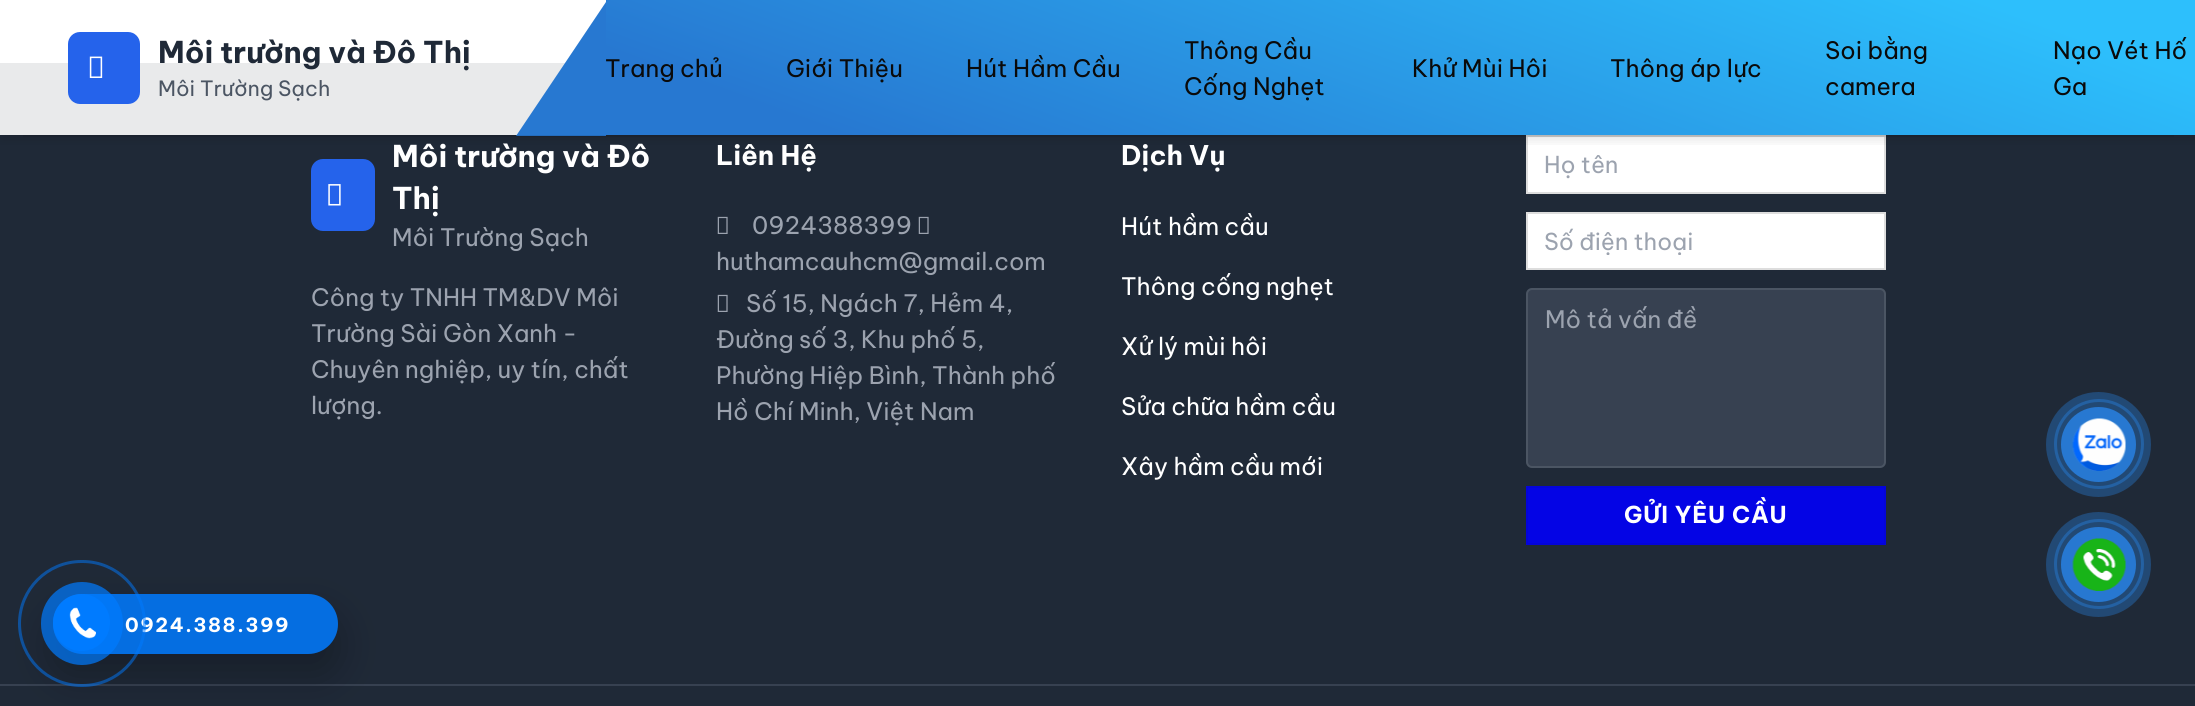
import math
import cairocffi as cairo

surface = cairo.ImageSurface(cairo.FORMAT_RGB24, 2195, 706)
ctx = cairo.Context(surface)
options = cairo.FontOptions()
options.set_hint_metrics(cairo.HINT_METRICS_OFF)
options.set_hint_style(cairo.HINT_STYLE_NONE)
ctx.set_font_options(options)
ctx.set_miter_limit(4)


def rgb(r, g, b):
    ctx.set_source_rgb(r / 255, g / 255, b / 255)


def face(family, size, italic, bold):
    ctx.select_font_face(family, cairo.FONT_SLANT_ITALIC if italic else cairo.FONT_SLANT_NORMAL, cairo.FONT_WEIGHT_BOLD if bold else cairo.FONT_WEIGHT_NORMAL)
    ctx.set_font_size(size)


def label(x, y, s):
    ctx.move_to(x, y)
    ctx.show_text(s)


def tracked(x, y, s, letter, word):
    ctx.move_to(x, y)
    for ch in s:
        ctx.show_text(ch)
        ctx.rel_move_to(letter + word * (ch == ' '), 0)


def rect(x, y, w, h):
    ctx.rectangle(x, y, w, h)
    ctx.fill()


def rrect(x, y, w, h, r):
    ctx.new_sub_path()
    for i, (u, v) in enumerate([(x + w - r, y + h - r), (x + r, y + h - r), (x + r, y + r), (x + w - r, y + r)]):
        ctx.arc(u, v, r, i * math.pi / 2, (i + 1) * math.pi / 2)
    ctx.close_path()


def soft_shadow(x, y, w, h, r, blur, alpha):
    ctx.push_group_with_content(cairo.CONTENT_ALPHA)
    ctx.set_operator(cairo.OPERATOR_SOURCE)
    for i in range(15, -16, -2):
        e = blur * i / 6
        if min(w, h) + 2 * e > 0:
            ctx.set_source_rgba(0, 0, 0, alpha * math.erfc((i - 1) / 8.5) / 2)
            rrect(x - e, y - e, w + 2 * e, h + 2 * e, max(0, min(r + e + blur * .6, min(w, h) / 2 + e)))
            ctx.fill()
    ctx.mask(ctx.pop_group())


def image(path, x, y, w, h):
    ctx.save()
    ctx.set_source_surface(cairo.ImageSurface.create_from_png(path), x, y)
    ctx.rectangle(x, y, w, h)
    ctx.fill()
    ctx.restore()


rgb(255, 255, 255)
ctx.paint()
rgb(31, 41, 55)
rect(0, 135, 2195, 571)
rgb(233, 234, 235)
rect(0, 63, 565, 72)
rgb(37, 99, 235)
rrect(311, 159, 64, 72, 12)
ctx.fill()
rgb(255, 255, 255)
ctx.rectangle(1527, 136, 358, 57)
ctx.fill_preserve()
rgb(221, 221, 221)
ctx.stroke()
ctx.save()
ctx.rectangle(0, 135, 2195, 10)
ctx.clip()
rgb(0, 0, 0)
soft_shadow(2, 2, 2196, 135, 0, 7.5, 0.15)
ctx.restore()
rgb(37, 99, 235)
rrect(68, 32, 72, 72, 12)
ctx.fill()
image('image0.png', 89, 56, 14, 22)
face('Be Vietnam Pro', 30, 0, 1)
rgb(31, 41, 55)
label(158, 63, 'Môi trường và Đô Thị')
face('Be Vietnam Pro', 21, 0, 0)
rgb(75, 85, 99)
label(158, 96, 'Môi Trường Sạch')
gradient = cairo.LinearGradient(1528, -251, 1296, 386)
gradient.add_color_stop_rgba(0.12, 0.176, 0.749, 0.988, 1)
gradient.add_color_stop_rgba(0.88, 0.153, 0.471, 0.82, 1)
ctx.set_source(gradient)
rect(606, 0, 1589, 135)
rgb(39, 120, 209)
ctx.new_path()
ctx.move_to(606, 2)
ctx.line_to(606, 136)
ctx.line_to(516, 136)
ctx.close_path()
ctx.fill()
face('Be Vietnam Pro', 24, 0, 0)
rgb(10, 10, 10)
label(605, 77, 'Trang chủ')
label(786, 77, 'Giới Thiệu')
label(966, 77, 'Hút Hầm Cầu')
label(1184, 59, 'Thông Cầu')
label(1184, 95, 'Cống Nghẹt')
label(1412, 77, 'Khử Mùi Hôi')
label(1610, 77, 'Thông áp lực')
label(1825, 59, 'Soi bằng')
label(1825, 95, 'camera')
label(2053, 59, 'Nạo Vét Hố')
label(2053, 95, 'Ga')
ctx.set_source_rgba(0.039, 0.039, 0.039, 0.1)
rect(23, 135, 2151, 2)
image('image1.png', 328, 184, 13, 22)
face('Be Vietnam Pro', 30, 0, 1)
rgb(255, 255, 255)
label(392, 167, 'Môi trường và Đô')
label(392, 209, 'Thị')
face('Be Vietnam Pro', 24, 0, 0)
rgb(156, 163, 175)
label(392, 246, 'Môi Trường Sạch')
label(311, 306, 'Công ty TNHH TM&DV Môi')
label(311, 342, 'Trường Sài Gòn Xanh -')
label(311, 378, 'Chuyên nghiệp, uy tín, chất')
label(311, 414, 'lượng.')
face('Be Vietnam Pro', 27, 0, 1)
rgb(255, 255, 255)
label(716, 165, 'Liên Hệ')
image('image2.png', 717, 216, 11, 18)
face('Be Vietnam Pro', 24, 0, 0)
rgb(156, 163, 175)
label(752, 234, '0924388399')
image('image2.png', 918, 216, 11, 18)
label(716, 270, 'huthamcauhcm@gmail.com')
image('image2.png', 717, 294, 11, 18)
label(746, 312, 'Số 15, Ngách 7, Hẻm 4,')
label(716, 348, 'Đường số 3, Khu phố 5,')
label(716, 384, 'Phường Hiệp Bình, Thành phố')
label(716, 420, 'Hồ Chí Minh, Việt Nam')
face('Be Vietnam Pro', 27, 0, 1)
rgb(255, 255, 255)
label(1121, 165, 'Dịch Vụ')
face('Be Vietnam Pro', 24, 0, 0)
label(1121, 235, 'Hút hầm cầu')
label(1121, 295, 'Thông cống nghẹt')
label(1121, 355, 'Xử lý mùi hôi')
label(1121, 415, 'Sửa chữa hầm cầu')
label(1121, 475, 'Xây hầm cầu mới')
face('Be Vietnam Pro', 23.25, 0, 0)
rgb(156, 163, 175)
label(1544, 173, 'Họ tên')
rgb(255, 255, 255)
ctx.rectangle(1527, 213, 358, 56)
ctx.fill_preserve()
rgb(221, 221, 221)
ctx.stroke()
ctx.save()
ctx.rectangle(1545, 225, 321, 30)
ctx.clip()
rgb(156, 163, 175)
label(1544, 250, 'Số điện thoại')
ctx.restore()
rgb(55, 65, 81)
rrect(1527, 289, 358, 178, 5)
ctx.fill_preserve()
rgb(75, 85, 99)
ctx.stroke()
face('Be Vietnam Pro', 24, 0, 0)
rgb(156, 163, 175)
label(1545, 328, 'Mô tả vấn đề')
rgb(4, 4, 229)
ctx.rectangle(1527, 487, 358, 57)
ctx.fill_preserve()
rgb(4, 4, 218)
ctx.stroke()
face('Be Vietnam Pro', 23.25, 0, 1)
rgb(255, 255, 255)
tracked(1624, 523, 'GỬI YÊU CẦU', 0.75, 0)
ctx.new_path()
ctx.arc(2099, 444, 43.5, 0, 2 * math.pi)
rgb(35, 81, 132)
ctx.set_line_width(3)
ctx.stroke()
ctx.set_source_rgba(0.153, 0.471, 0.82, 0.4)
ctx.arc(2098.5, 444.5, 52.5, 0, 2 * math.pi)
ctx.fill()
rgb(39, 120, 209)
ctx.arc(2098.5, 444.5, 37.5, 0, 2 * math.pi)
ctx.fill()
image('image3.png', 2072, 418, 54, 53)
ctx.arc(2099, 564, 43.5, 0, 2 * math.pi)
rgb(35, 81, 132)
ctx.stroke()
ctx.set_source_rgba(0.153, 0.471, 0.82, 0.4)
ctx.arc(2098.5, 564.5, 52.5, 0, 2 * math.pi)
ctx.fill()
rgb(39, 120, 209)
ctx.arc(2098.5, 564.5, 37.5, 0, 2 * math.pi)
ctx.fill()
image('image4.png', 2072, 538, 54, 53)
rgb(55, 65, 81)
rect(0, 684, 2195, 2)
ctx.save()
ctx.set_fill_rule(cairo.FILL_RULE_EVEN_ODD)
ctx.new_path()
ctx.move_to(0, 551)
ctx.line_to(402, 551)
ctx.line_to(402, 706)
ctx.line_to(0, 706)
ctx.close_path()
ctx.move_to(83, 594)
ctx.line_to(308, 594)
ctx.curve_to(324.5, 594, 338, 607.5, 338, 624)
ctx.curve_to(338, 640.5, 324.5, 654, 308, 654)
ctx.line_to(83, 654)
ctx.curve_to(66.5, 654, 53, 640.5, 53, 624)
ctx.curve_to(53, 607.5, 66.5, 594, 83, 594)
ctx.close_path()
ctx.clip()
rgb(0, 0, 0)
soft_shadow(53, 615, 285, 60, 30, 21, 0.25)
ctx.restore()
ctx.set_source_rgba(0, 0.482, 1, 0.85)
rrect(53, 594, 285, 60, 30)
ctx.fill()
face('Be Vietnam Pro', 19.5, 0, 1)
rgb(255, 255, 255)
tracked(125, 632, '0924.388.399', 1.5, 0)
rrect(19.5, 561.5, 125, 124, 62)
ctx.set_source_rgba(0, 0.482, 1, 0.5)
ctx.stroke()
ctx.set_source_rgba(0, 0.482, 1, 0.7)
rrect(41, 582, 82, 83, 41)
ctx.fill()
rgb(0, 123, 255)
ctx.arc(81.5, 622.5, 28.5, 0, 2 * math.pi)
ctx.fill()
image('image5.png', 69, 607, 27, 32)
surface.write_to_png('render.png')
